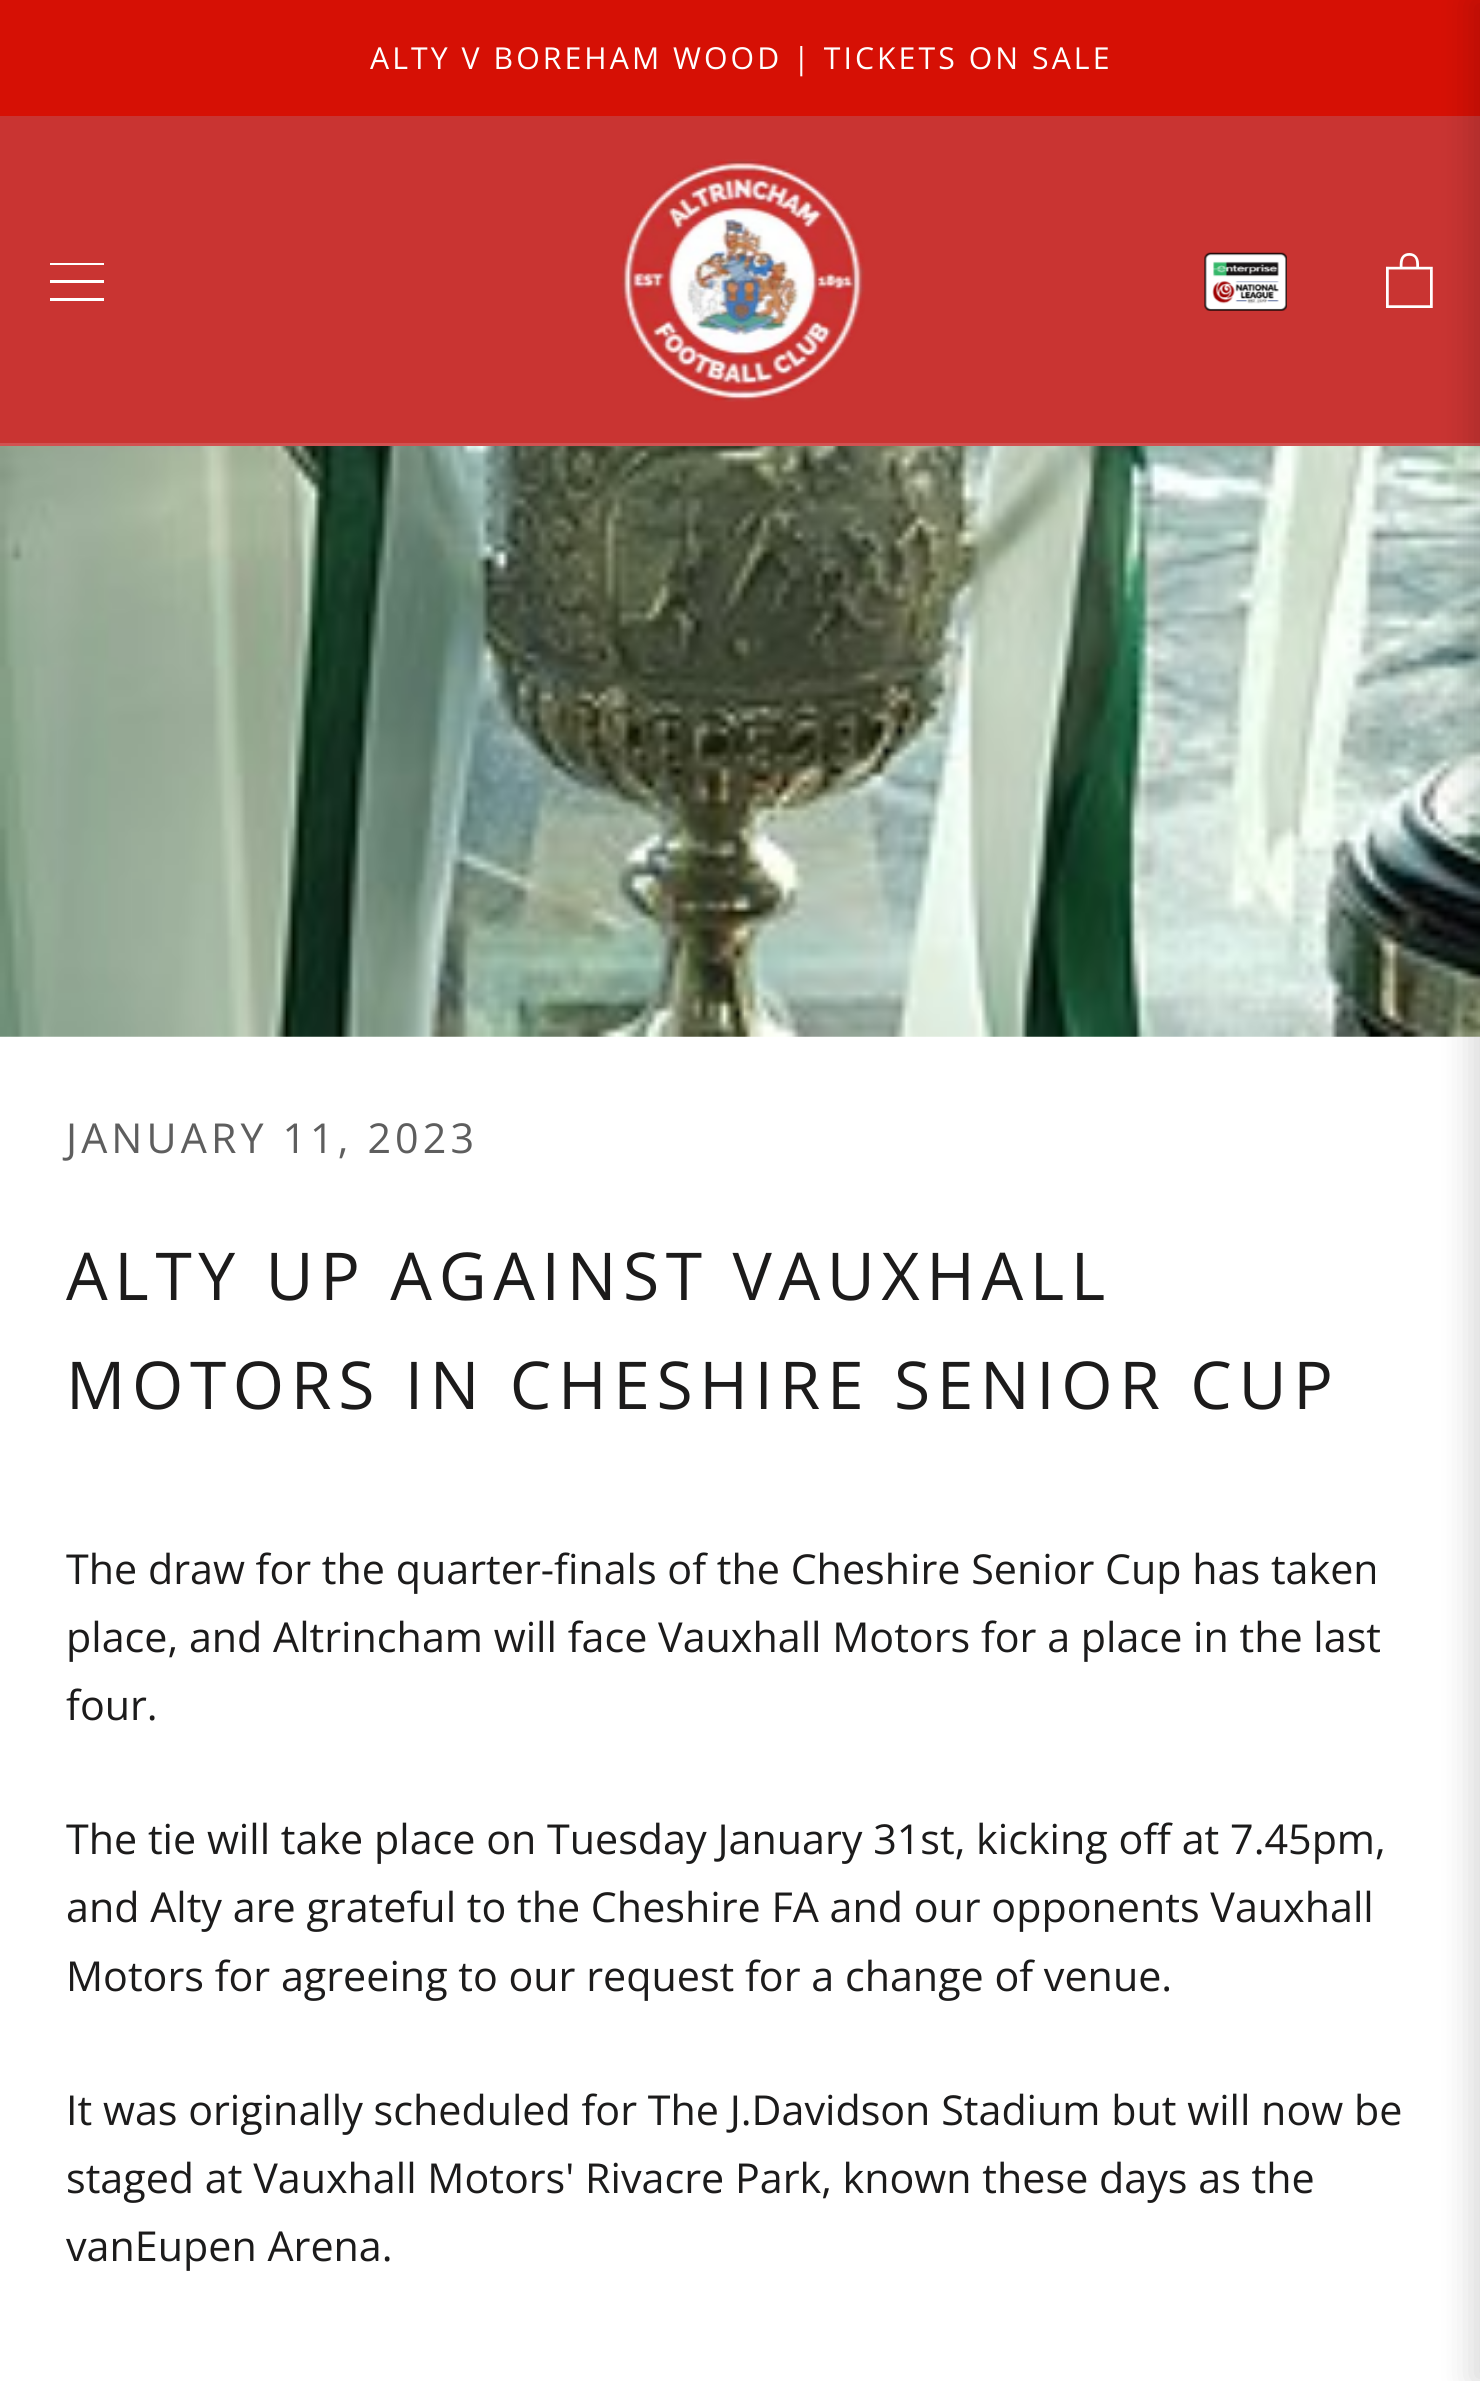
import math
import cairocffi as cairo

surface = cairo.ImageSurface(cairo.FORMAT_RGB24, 1480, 2381)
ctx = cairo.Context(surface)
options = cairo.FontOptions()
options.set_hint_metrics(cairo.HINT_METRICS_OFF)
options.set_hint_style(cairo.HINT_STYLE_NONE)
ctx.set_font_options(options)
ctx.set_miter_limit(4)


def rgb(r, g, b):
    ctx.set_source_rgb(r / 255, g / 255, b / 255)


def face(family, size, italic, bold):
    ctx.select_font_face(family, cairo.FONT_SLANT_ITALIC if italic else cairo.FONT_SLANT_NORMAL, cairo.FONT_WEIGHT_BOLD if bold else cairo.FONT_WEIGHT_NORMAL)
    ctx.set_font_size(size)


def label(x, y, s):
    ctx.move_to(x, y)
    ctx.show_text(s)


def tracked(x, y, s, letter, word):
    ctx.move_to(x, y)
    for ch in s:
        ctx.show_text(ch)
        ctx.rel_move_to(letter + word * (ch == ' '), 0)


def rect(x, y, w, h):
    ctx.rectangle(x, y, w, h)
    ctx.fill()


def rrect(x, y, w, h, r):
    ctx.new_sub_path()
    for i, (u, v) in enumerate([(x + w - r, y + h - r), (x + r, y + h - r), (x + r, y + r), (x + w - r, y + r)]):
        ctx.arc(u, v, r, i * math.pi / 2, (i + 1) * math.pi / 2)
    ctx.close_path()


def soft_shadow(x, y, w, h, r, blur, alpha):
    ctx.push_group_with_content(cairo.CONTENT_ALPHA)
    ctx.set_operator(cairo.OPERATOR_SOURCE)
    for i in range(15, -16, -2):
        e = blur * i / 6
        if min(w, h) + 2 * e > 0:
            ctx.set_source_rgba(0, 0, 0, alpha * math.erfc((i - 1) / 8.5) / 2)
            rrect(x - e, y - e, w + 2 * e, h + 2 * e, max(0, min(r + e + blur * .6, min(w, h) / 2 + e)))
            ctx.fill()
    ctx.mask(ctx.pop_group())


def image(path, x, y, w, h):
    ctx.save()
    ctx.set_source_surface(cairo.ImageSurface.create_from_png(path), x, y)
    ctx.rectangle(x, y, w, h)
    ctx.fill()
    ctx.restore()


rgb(255, 255, 255)
ctx.paint()
rgb(214, 16, 5)
rect(0, 0, 1480, 116)
face('Open Sans', 30.25, 0, 0)
rgb(255, 255, 255)
tracked(370, 69, 'ALTY V BOREHAM WOOD | TICKETS ON SALE', 3.05, 0)
rgb(201, 52, 50)
rect(0, 116, 1480, 327)
rgb(209, 82, 81)
rect(0, 443, 1480, 3)
rgb(255, 255, 255)
ctx.new_path()
ctx.move_to(50, 301)
ctx.line_to(50, 298)
ctx.line_to(104, 298)
ctx.line_to(104, 301)
ctx.close_path()
ctx.move_to(50, 280)
ctx.line_to(104, 280)
ctx.line_to(104, 283)
ctx.line_to(50, 283)
ctx.close_path()
ctx.move_to(50, 263)
ctx.line_to(104, 263)
ctx.line_to(104, 265)
ctx.line_to(50, 265)
ctx.close_path()
ctx.fill()
image('image0.png', 620, 159, 245, 243)
image('image1.png', 1204, 252, 83, 59)
image('image2.png', 1386, 253, 47, 55)
image('image3.png', 0, 446, 1480, 591)
face('Open Sans', 41.25, 0, 0)
rgb(94, 94, 94)
tracked(66, 1153, 'JANUARY 11, 2023', 4.1, 0)
face('Open Sans', 66, 0, 0)
rgb(28, 27, 27)
tracked(66, 1300, 'ALTY UP AGAINST VAUXHALL', 6.6, 0)
tracked(66, 1409, 'MOTORS IN CHESHIRE SENIOR CUP', 6.6, 0)
face('Open Sans', 41.25, 0, 0)
label(66, 1584, 'The draw for the quarter-finals of the Cheshire Senior Cup has taken')
label(66, 1652, 'place, and Altrincham will face Vauxhall Motors for a place in the last')
label(66, 1720, 'four.')
label(66, 1854, 'The tie will take place on Tuesday January 31st, kicking off at 7.45pm,')
label(66, 1922, 'and Alty are grateful to the Cheshire FA and our opponents Vauxhall')
label(66, 1991, 'Motors for agreeing to our request for a change of venue.')
label(66, 2125, 'It was originally scheduled for The J.Davidson Stadium but will now be')
label(66, 2193, 'staged at Vauxhall Motors\' Rivacre Park, known these days as the')
label(66, 2261, 'vanEupen Arena.')
rgb(0, 0, 0)
soft_shadow(1471, 0, 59, 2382, 0, 16.5, 0.15)
surface.write_to_png('render.png')
